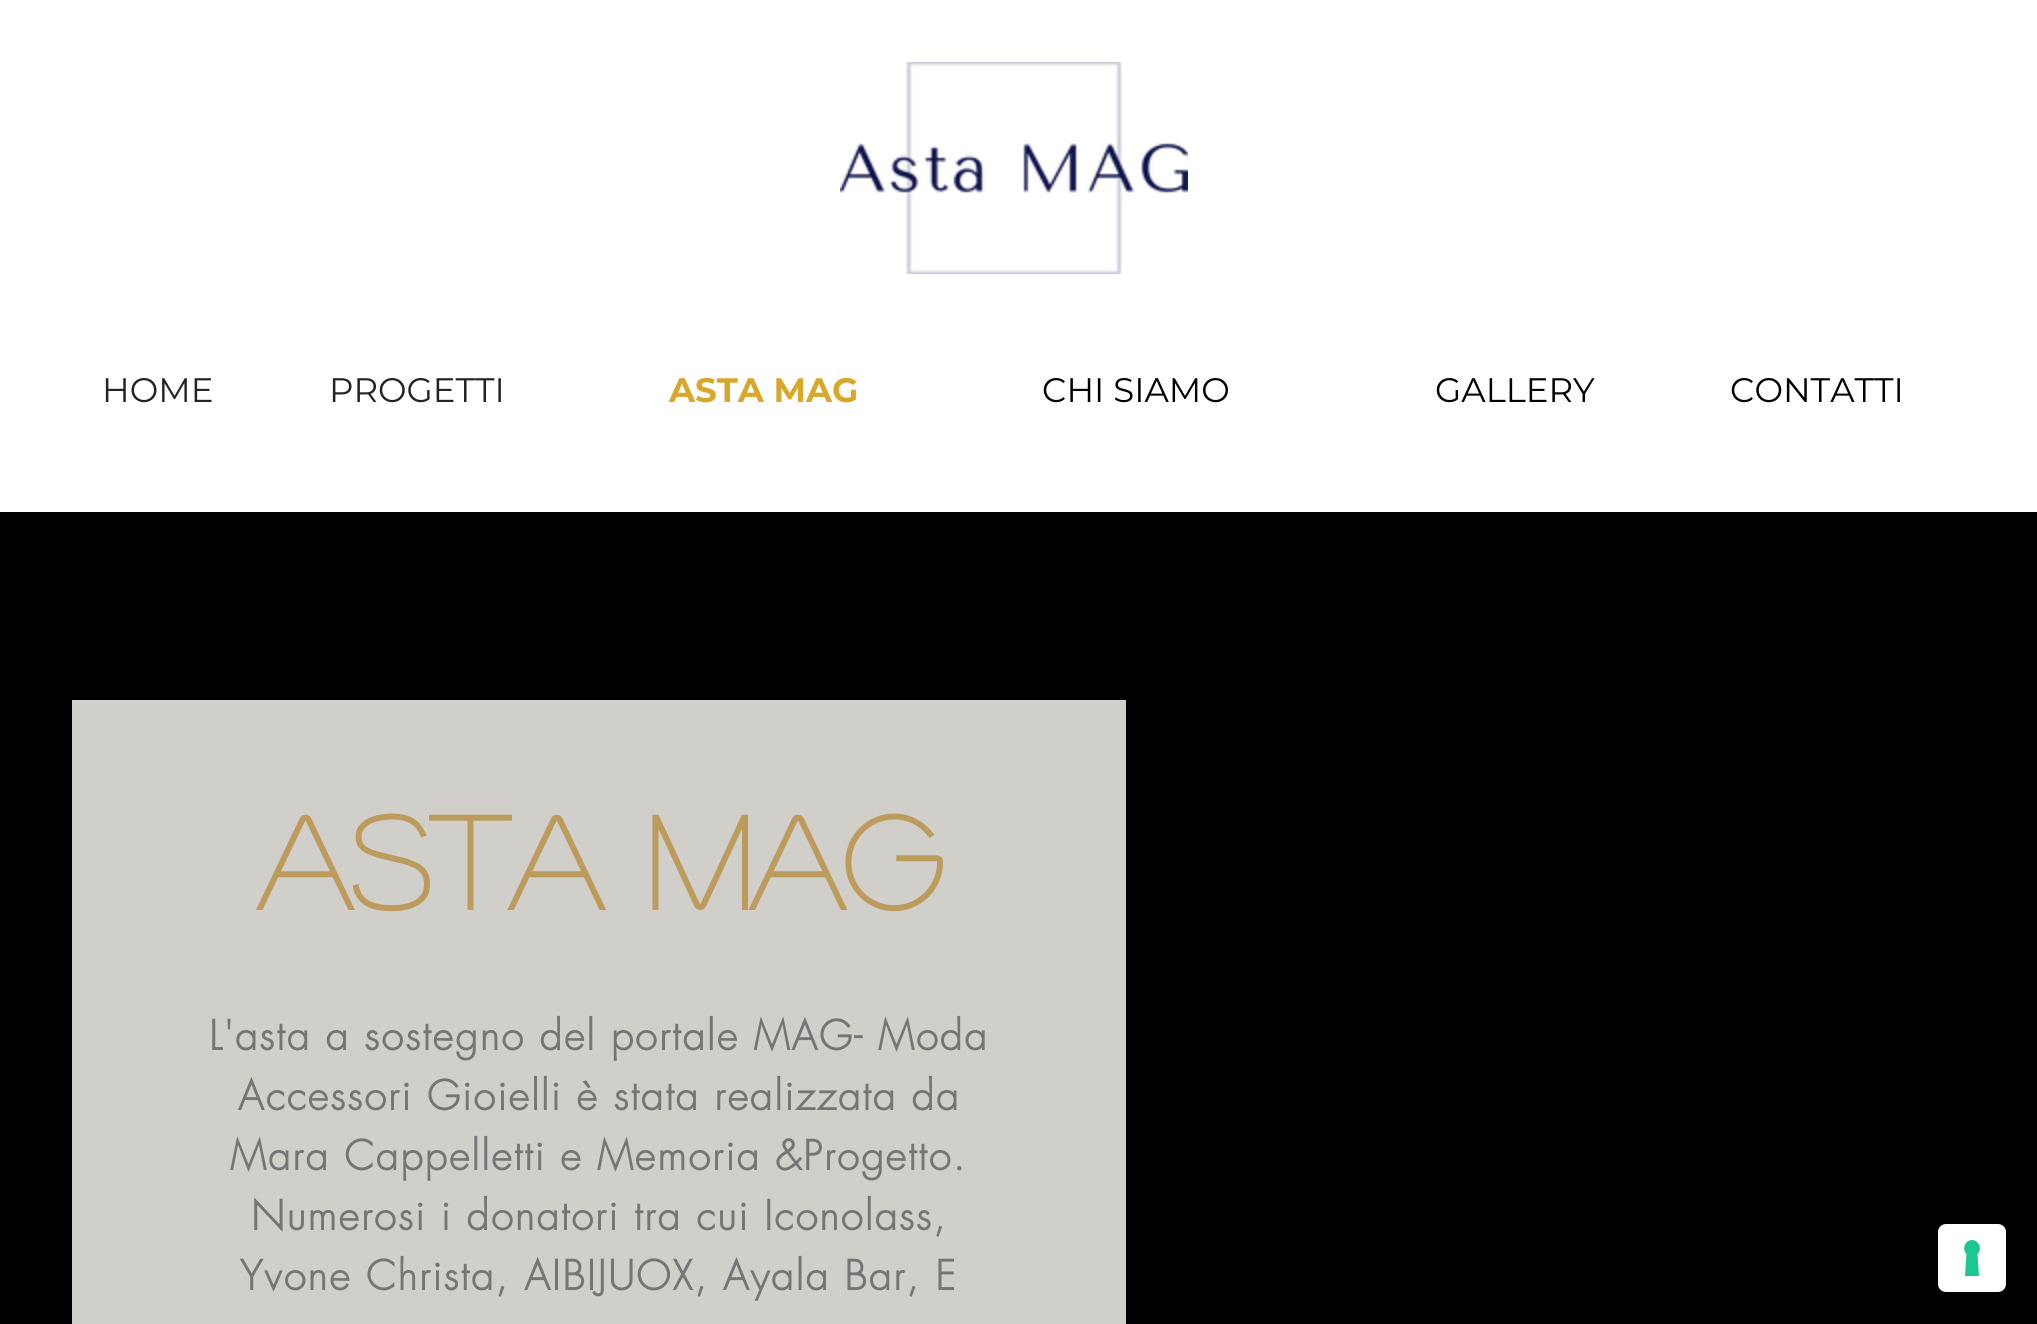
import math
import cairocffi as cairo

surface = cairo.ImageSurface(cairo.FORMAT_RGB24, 2037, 1324)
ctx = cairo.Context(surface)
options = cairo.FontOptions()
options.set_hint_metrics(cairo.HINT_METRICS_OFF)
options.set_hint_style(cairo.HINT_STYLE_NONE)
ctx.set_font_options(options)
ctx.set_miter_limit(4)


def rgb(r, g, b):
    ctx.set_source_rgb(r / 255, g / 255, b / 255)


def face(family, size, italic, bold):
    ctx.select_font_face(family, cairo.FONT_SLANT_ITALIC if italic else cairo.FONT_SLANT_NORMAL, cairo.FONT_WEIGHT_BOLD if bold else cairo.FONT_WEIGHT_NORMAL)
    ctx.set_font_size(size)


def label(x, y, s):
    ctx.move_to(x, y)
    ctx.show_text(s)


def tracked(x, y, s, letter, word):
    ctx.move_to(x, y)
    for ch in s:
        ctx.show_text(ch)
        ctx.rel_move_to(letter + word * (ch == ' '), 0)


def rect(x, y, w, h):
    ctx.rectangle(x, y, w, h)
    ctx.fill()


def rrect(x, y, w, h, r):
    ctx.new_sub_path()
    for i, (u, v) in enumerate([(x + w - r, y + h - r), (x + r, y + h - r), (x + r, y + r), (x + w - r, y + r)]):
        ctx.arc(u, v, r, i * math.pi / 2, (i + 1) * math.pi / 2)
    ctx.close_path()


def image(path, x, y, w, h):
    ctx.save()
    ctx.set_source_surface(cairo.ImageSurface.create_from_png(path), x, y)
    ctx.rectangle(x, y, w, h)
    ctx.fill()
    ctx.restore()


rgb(255, 255, 255)
ctx.paint()
image('image0.png', 840, 62, 348, 212)
face('Montserrat', 34, 0, 0)
rgb(36, 35, 35)
label(102, 402, 'HOME')
label(329, 402, 'PROGETTI')
face('Montserrat', 34, 0, 1)
rgb(217, 168, 43)
label(669, 402, 'ASTA MAG')
face('Montserrat', 34, 0, 0)
rgb(0, 0, 0)
label(1042, 402, 'CHI SIAMO')
label(1435, 402, 'GALLERY')
label(1730, 402, 'CONTATTI')
rect(0, 512, 2037, 812)
rgb(209, 207, 201)
rect(72, 700, 1054, 624)
face('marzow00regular', 130, 0, 1)
rgb(188, 155, 93)
label(257, 910, 'ASTA MAG')
face('futura', 40, 0, 1)
rgb(117, 117, 117)
tracked(209, 1050, 'L\'asta a sostegno del portale MAG- Moda', 2, 0)
tracked(238, 1110, 'Accessori Gioielli è stata realizzata da', 2, 0)
tracked(230, 1170, 'Mara Cappelletti e Memoria &Progetto.', 2, 0)
tracked(251, 1230, 'Numerosi i donatori tra cui Iconolass,', 2, 0)
tracked(240, 1290, 'Yvone Christa, AIBIJUOX, Ayala Bar, E', 2, 0)
rgb(255, 255, 255)
rrect(1938, 1224, 68, 68, 8)
ctx.fill()
rgb(28, 198, 145)
ctx.set_fill_rule(cairo.FILL_RULE_EVEN_ODD)
ctx.new_path()
ctx.move_to(1972, 1240)
ctx.curve_to(1979, 1240, 1982.5, 1249.5, 1977.5, 1254)
ctx.line_to(1979, 1276)
ctx.line_to(1965, 1276)
ctx.line_to(1966.5, 1254)
ctx.curve_to(1961.5, 1249.5, 1965, 1240, 1972, 1240)
ctx.close_path()
ctx.fill()
surface.write_to_png('render.png')
